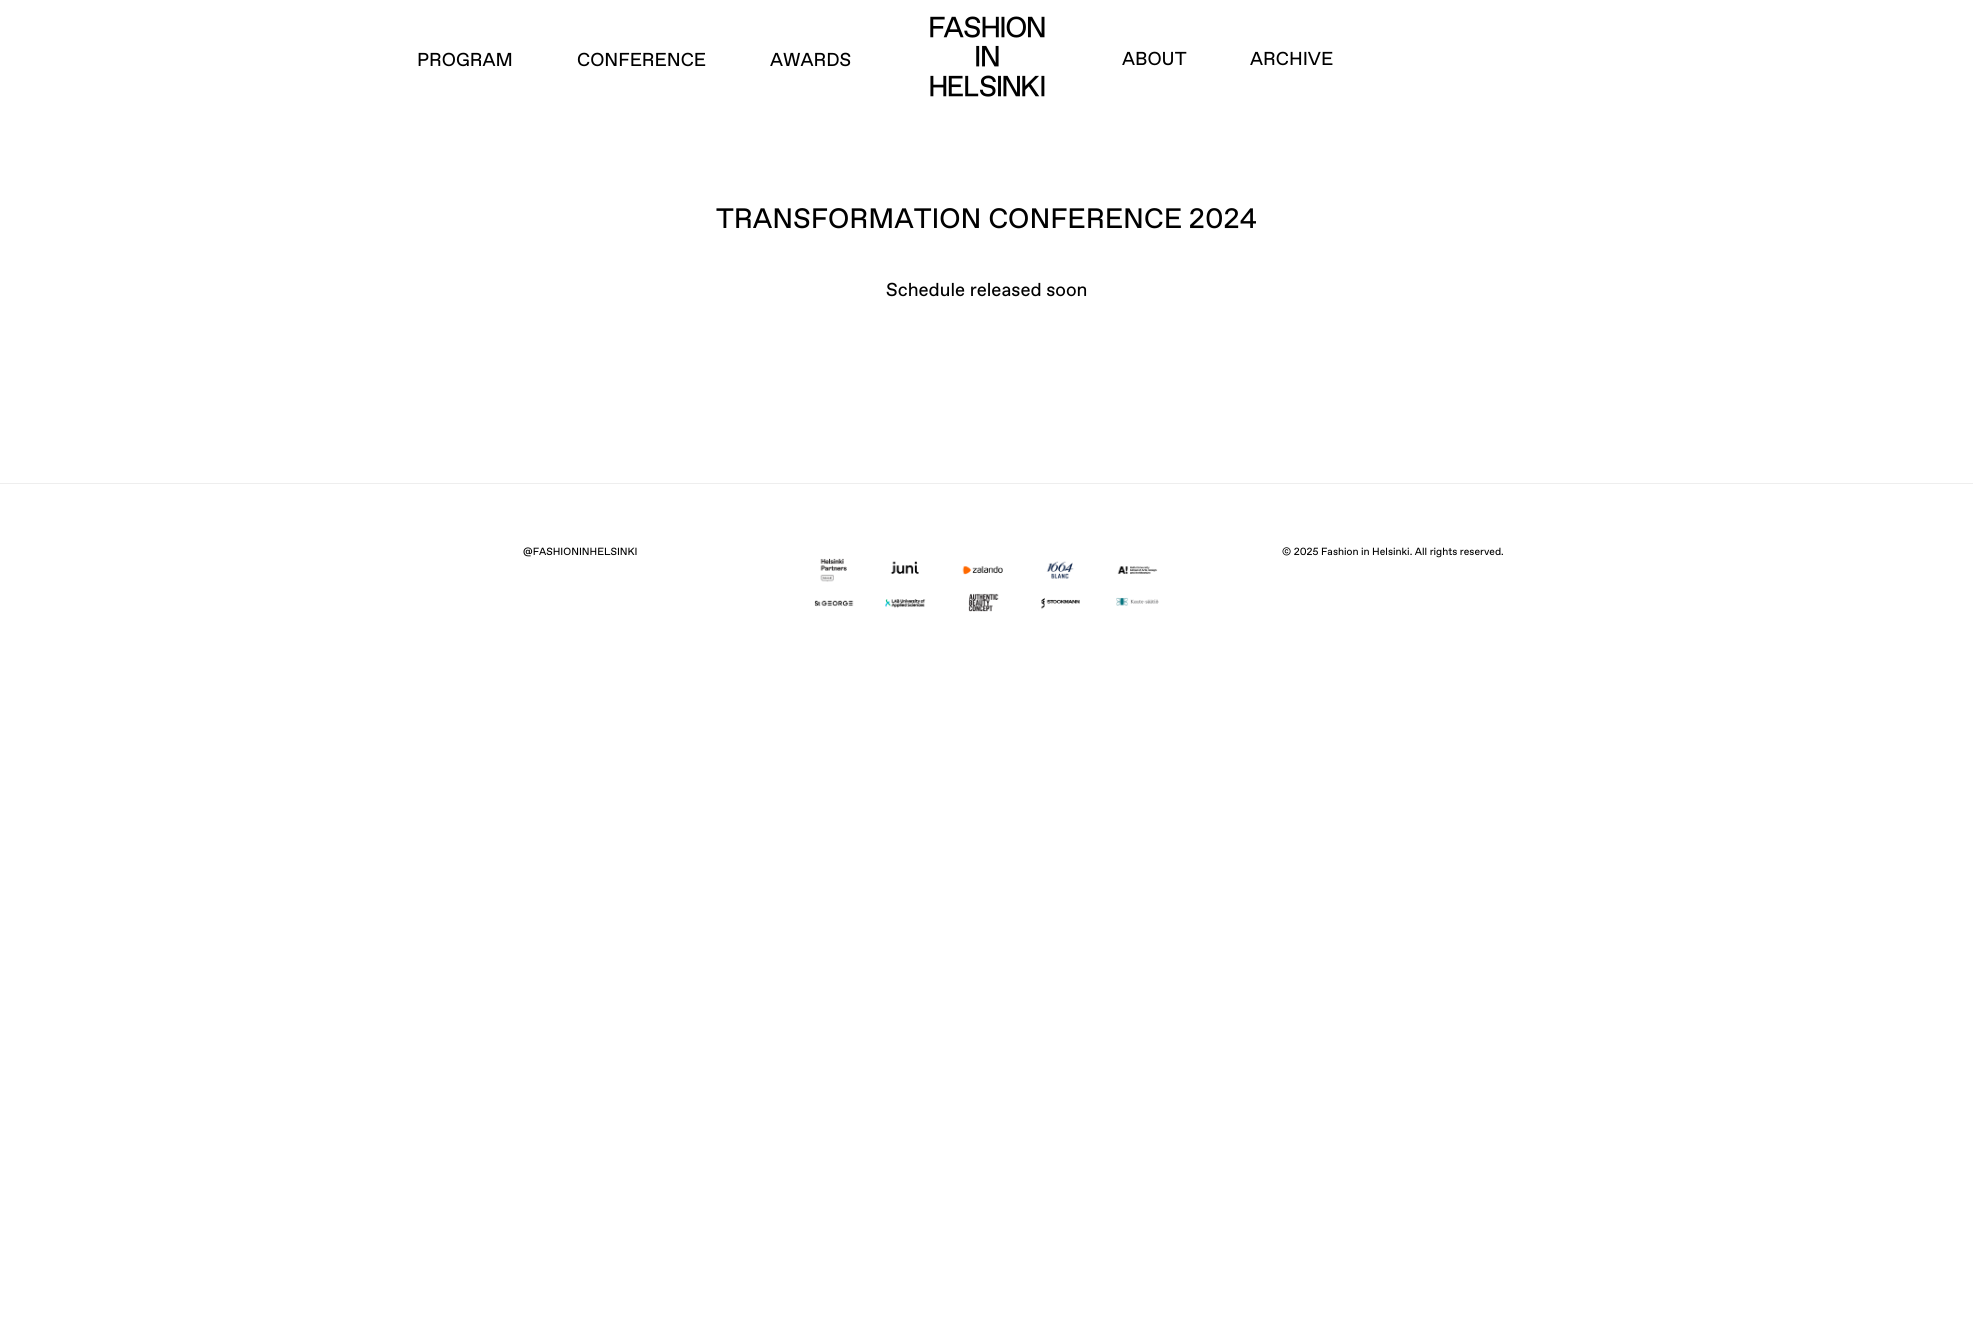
import math
import cairocffi as cairo

surface = cairo.ImageSurface(cairo.FORMAT_RGB24, 1973, 1317)
ctx = cairo.Context(surface)
options = cairo.FontOptions()
options.set_hint_metrics(cairo.HINT_METRICS_OFF)
options.set_hint_style(cairo.HINT_STYLE_NONE)
ctx.set_font_options(options)
ctx.set_miter_limit(4)


def rgb(r, g, b):
    ctx.set_source_rgb(r / 255, g / 255, b / 255)


def face(family, size, italic, bold):
    ctx.select_font_face(family, cairo.FONT_SLANT_ITALIC if italic else cairo.FONT_SLANT_NORMAL, cairo.FONT_WEIGHT_BOLD if bold else cairo.FONT_WEIGHT_NORMAL)
    ctx.set_font_size(size)


def label(x, y, s):
    ctx.move_to(x, y)
    ctx.show_text(s)


def rect(x, y, w, h):
    ctx.rectangle(x, y, w, h)
    ctx.fill()


def image(path, x, y, w, h):
    ctx.save()
    ctx.set_source_surface(cairo.ImageSurface.create_from_png(path), x, y)
    ctx.rectangle(x, y, w, h)
    ctx.fill()
    ctx.restore()


rgb(255, 255, 255)
ctx.paint()
face('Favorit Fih', 18, 0, 0)
rgb(0, 0, 0)
label(417, 66, 'PROGRAM')
label(577, 66, 'CONFERENCE')
label(770, 66, 'AWARDS')
image('image0.png', 930, 16, 115, 81)
label(1122, 65, 'ABOUT')
label(1250, 65, 'ARCHIVE')
face('Favorit Fih', 27, 0, 0)
label(716, 228, 'TRANSFORMATION CONFERENCE 2024')
face('Favorit Fih', 18, 0, 0)
label(886, 296, 'Schedule released soon')
rgb(238, 238, 238)
rect(0, 483, 1973, 1)
face('Favorit Fih', 10, 0, 0)
rgb(0, 0, 0)
label(523, 555, '@FASHIONINHELSINKI')
label(1282, 555, '© 2025 Fashion in Helsinki. All rights reserved.')
image('image1.png', 814, 558, 345, 54)
surface.write_to_png('render.png')
